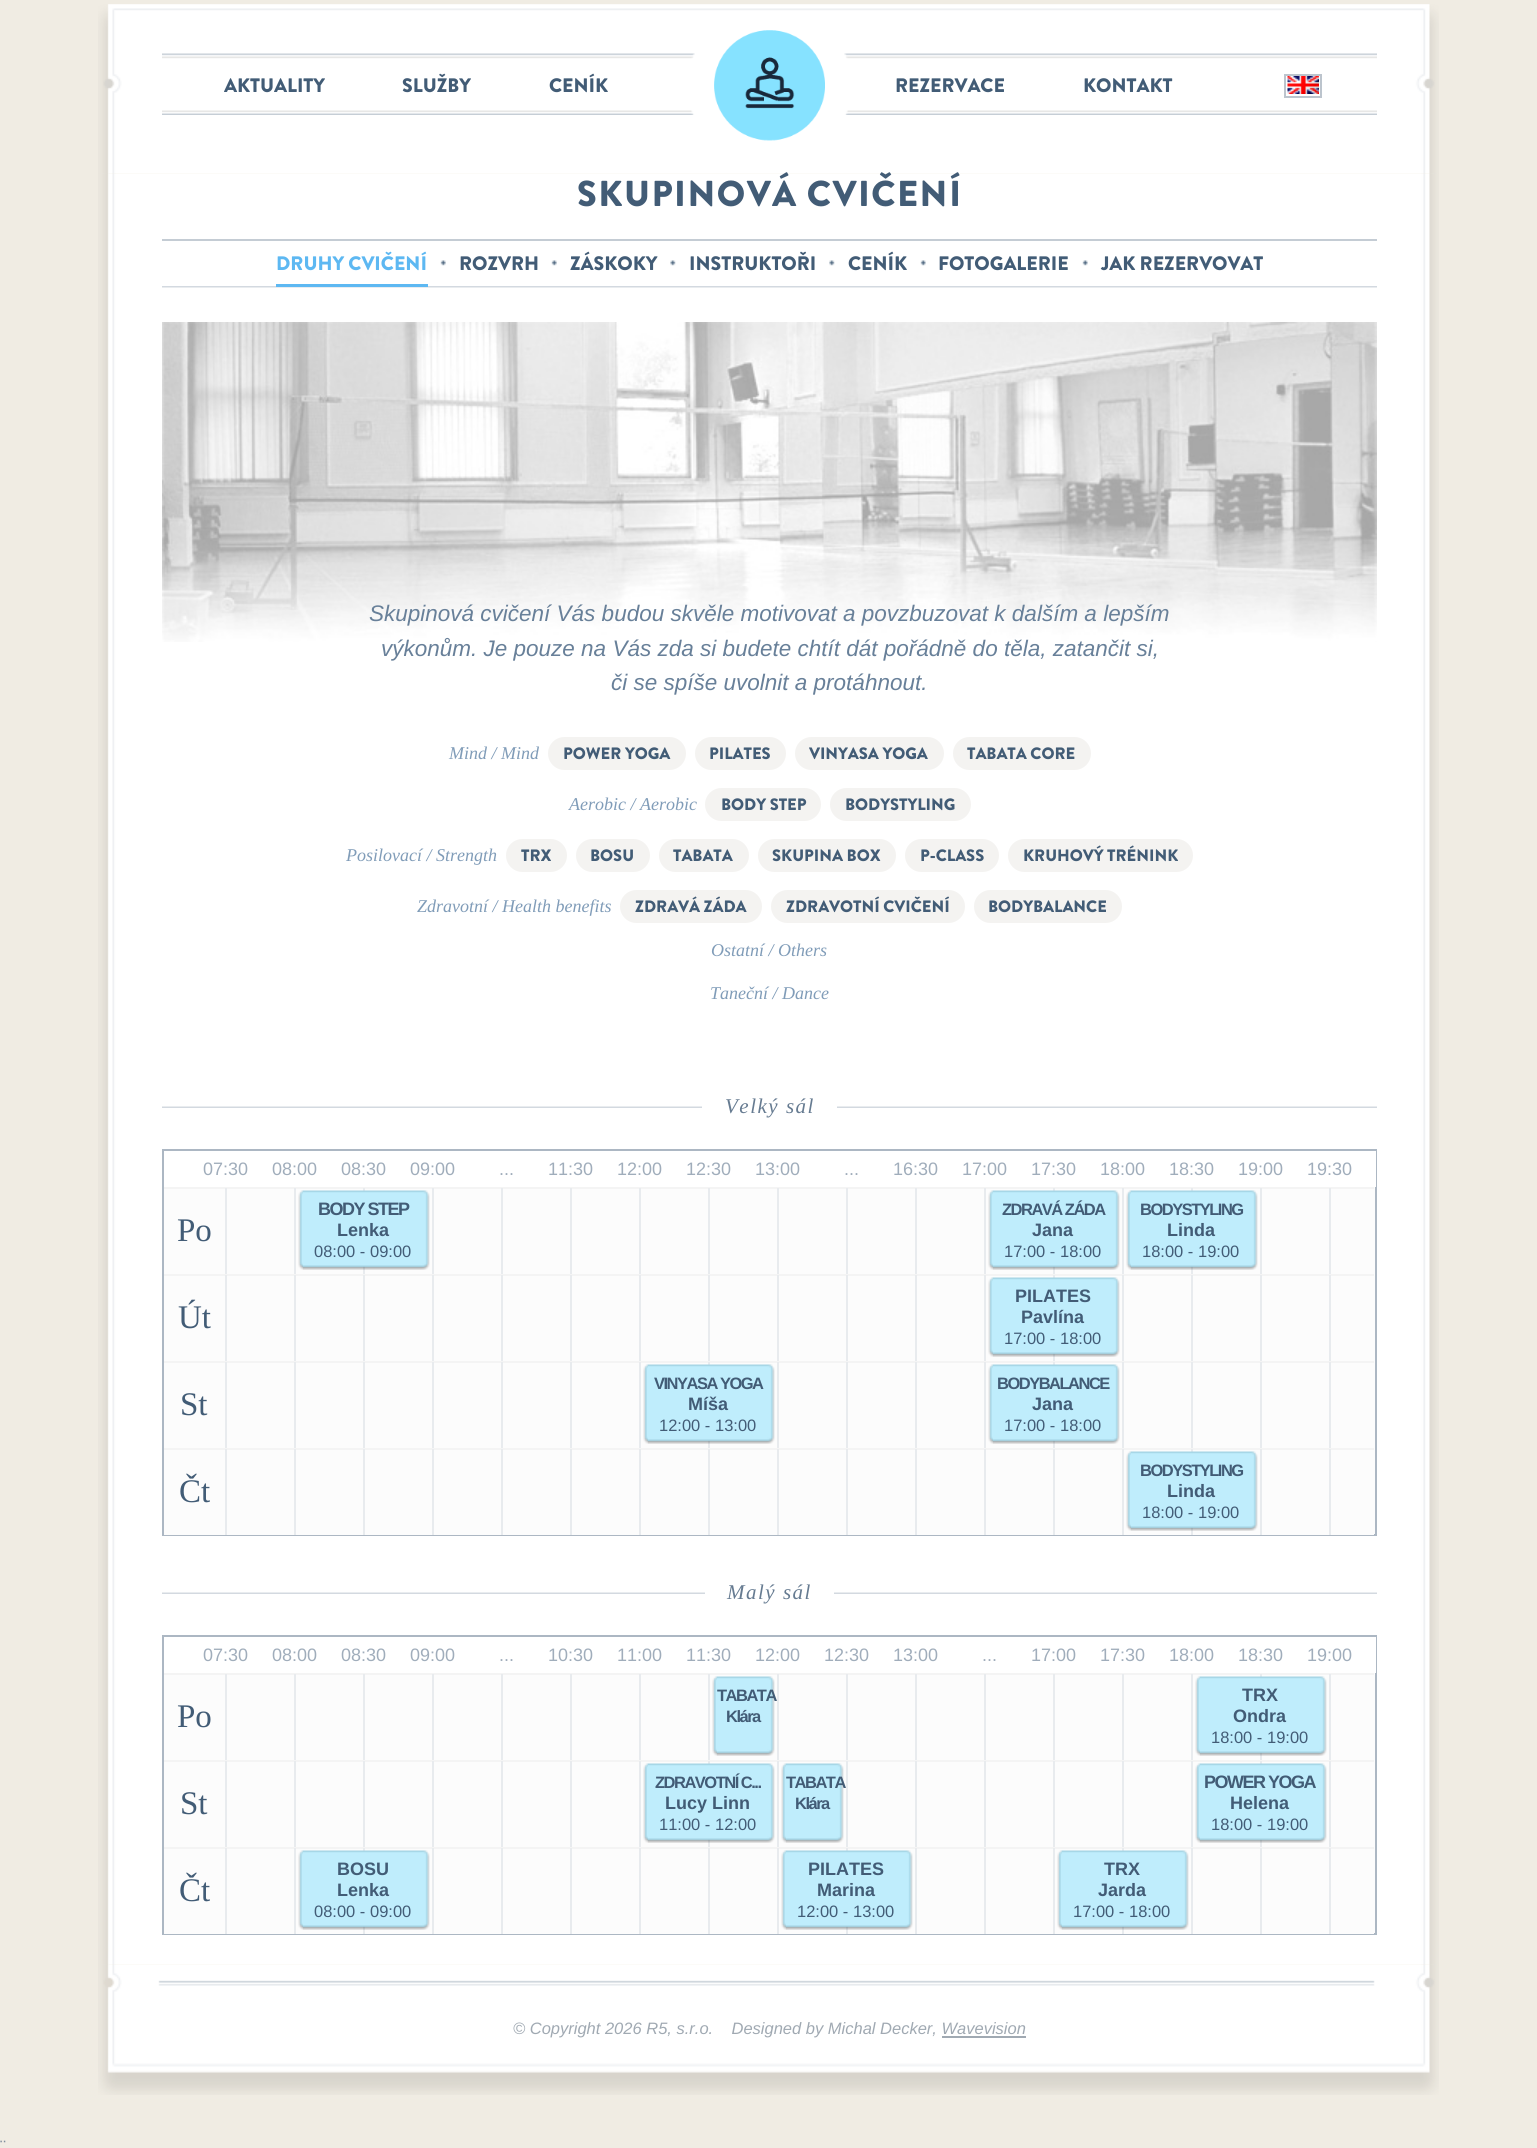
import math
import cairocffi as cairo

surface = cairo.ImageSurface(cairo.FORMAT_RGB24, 1537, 2148)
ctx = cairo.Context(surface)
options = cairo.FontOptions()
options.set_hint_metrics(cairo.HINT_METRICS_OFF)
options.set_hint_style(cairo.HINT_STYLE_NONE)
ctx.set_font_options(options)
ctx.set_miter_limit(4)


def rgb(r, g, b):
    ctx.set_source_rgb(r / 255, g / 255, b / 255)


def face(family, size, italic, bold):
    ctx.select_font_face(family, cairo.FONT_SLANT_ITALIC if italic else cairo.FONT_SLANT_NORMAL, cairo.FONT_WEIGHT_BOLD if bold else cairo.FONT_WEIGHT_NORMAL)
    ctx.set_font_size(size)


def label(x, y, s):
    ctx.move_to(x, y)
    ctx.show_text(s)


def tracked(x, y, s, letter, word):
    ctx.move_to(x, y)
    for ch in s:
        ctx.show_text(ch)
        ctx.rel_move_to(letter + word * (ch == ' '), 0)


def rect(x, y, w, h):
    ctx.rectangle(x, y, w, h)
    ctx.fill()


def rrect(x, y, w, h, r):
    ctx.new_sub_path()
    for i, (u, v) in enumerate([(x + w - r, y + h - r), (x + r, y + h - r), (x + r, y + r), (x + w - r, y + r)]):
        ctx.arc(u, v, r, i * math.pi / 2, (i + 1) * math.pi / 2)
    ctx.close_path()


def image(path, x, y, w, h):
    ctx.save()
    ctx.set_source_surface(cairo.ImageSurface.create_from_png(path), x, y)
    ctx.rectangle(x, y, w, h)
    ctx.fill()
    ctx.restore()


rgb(240, 236, 227)
ctx.paint()
image('image0.png', 98, 4, 1341, 170)
image('image3.png', 162, 53, 1215, 62)
image('image1.png', 691, 53, 157, 62)
image('image2.png', 714, 30, 111, 111)
face('Brandon Grotesque Black', 19.5, 0, 0)
rgb(66, 92, 118)
label(224, 92, 'AKTUALITY')
label(402, 92, 'SLUŽBY')
label(549, 92, 'CENÍK')
label(895, 92, 'REZERVACE')
label(1083, 92, 'KONTAKT')
ctx.rectangle(1285, 75, 36, 22)
rgb(188, 196, 205)
ctx.stroke()
image('image4.png', 1287, 76, 32, 18)
image('image5.png', 98, 173, 1341, 1792)
face('Brandon Grotesque Black', 36, 0, 0)
rgb(66, 92, 118)
tracked(577, 206, 'SKUPINOVÁ CVIČENÍ', 1.5, 0)
image('image6.png', 162, 286, 1215, 2)
rgb(196, 204, 212)
rect(162, 239, 1215, 2)
rgb(93, 184, 242)
rect(276, 284, 152, 3)
face('Brandon Grotesque Black', 19.5, 0, 0)
label(276, 270, 'DRUHY CVIČENÍ')
image('image7.png', 440, 260, 6, 6)
rgb(66, 92, 118)
label(459, 270, 'ROZVRH')
image('image7.png', 551, 260, 6, 6)
label(570, 270, 'ZÁSKOKY')
image('image8.png', 670, 260, 6, 6)
label(689, 270, 'INSTRUKTOŘI')
image('image8.png', 829, 260, 6, 6)
label(848, 270, 'CENÍK')
image('image9.png', 920, 260, 6, 6)
label(938, 270, 'FOTOGALERIE')
image('image9.png', 1082, 260, 6, 6)
label(1101, 270, 'JAK REZERVOVAT')
image('image10.png', 162, 322, 1215, 320)
face('Liberation Sans', 22.5, 1, 0)
rgb(104, 128, 153)
label(369, 621, 'Skupinová cvičení Vás budou skvěle motivovat a povzbuzovat k dalším a lepším')
label(381, 656, 'výkonům. Je pouze na Vás zda si budete chtít dát pořádně do těla, zatančit si,')
label(611, 690, 'či se spíše uvolnit a protáhnout.')
face('Liberation Serif', 18, 1, 0)
rgb(128, 156, 184)
label(449, 759, 'Mind / Mind')
rgb(244, 243, 241)
rrect(548, 737, 138, 33, 16.5)
ctx.fill()
face('Brandon Grotesque Black', 16.5, 0, 0)
rgb(66, 92, 118)
label(563, 759, 'POWER YOGA')
rgb(244, 243, 241)
rrect(695, 737, 91, 33, 16.5)
ctx.fill()
rgb(66, 92, 118)
label(709, 759, 'PILATES')
rgb(244, 243, 241)
rrect(795, 737, 149, 33, 16.5)
ctx.fill()
rgb(66, 92, 118)
label(809, 759, 'VINYASA YOGA')
rgb(244, 243, 241)
rrect(953, 737, 138, 33, 16.5)
ctx.fill()
rgb(66, 92, 118)
label(967, 759, 'TABATA CORE')
face('Liberation Serif', 18, 1, 0)
rgb(128, 156, 184)
label(569, 810, 'Aerobic / Aerobic')
rgb(244, 243, 241)
rrect(705, 788, 116, 33, 16.5)
ctx.fill()
face('Brandon Grotesque Black', 16.5, 0, 0)
rgb(66, 92, 118)
label(721, 810, 'BODY STEP')
rgb(244, 243, 241)
rrect(830, 788, 141, 33, 16.5)
ctx.fill()
rgb(66, 92, 118)
label(845, 810, 'BODYSTYLING')
face('Liberation Serif', 18, 1, 0)
rgb(128, 156, 184)
label(346, 861, 'Posilovací / Strength')
rgb(244, 243, 241)
rrect(506, 839, 61, 33, 16.5)
ctx.fill()
face('Brandon Grotesque Black', 16.5, 0, 0)
rgb(66, 92, 118)
label(521, 861, 'TRX')
rgb(244, 243, 241)
rrect(576, 839, 74, 33, 16.5)
ctx.fill()
rgb(66, 92, 118)
label(590, 861, 'BOSU')
rgb(244, 243, 241)
rrect(659, 839, 90, 33, 16.5)
ctx.fill()
rgb(66, 92, 118)
label(673, 861, 'TABATA')
rgb(244, 243, 241)
rrect(758, 839, 138, 33, 16.5)
ctx.fill()
rgb(66, 92, 118)
label(772, 861, 'SKUPINA BOX')
rgb(244, 243, 241)
rrect(905, 839, 94, 33, 16.5)
ctx.fill()
rgb(66, 92, 118)
label(920, 861, 'P-CLASS')
rgb(244, 243, 241)
rrect(1008, 839, 185, 33, 16.5)
ctx.fill()
rgb(66, 92, 118)
label(1023, 861, 'KRUHOVÝ TRÉNINK')
face('Liberation Serif', 18, 1, 0)
rgb(128, 156, 184)
label(417, 912, 'Zdravotní / Health benefits')
rgb(244, 243, 241)
rrect(620, 890, 142, 33, 16.5)
ctx.fill()
face('Brandon Grotesque Black', 16.5, 0, 0)
rgb(66, 92, 118)
label(635, 912, 'ZDRAVÁ ZÁDA')
rgb(244, 243, 241)
rrect(771, 890, 194, 33, 16.5)
ctx.fill()
rgb(66, 92, 118)
label(786, 912, 'ZDRAVOTNÍ CVIČENÍ')
rgb(244, 243, 241)
rrect(974, 890, 148, 33, 16.5)
ctx.fill()
rgb(66, 92, 118)
label(988, 912, 'BODYBALANCE')
face('Liberation Serif', 18, 1, 0)
rgb(128, 156, 184)
label(711, 956, 'Ostatní / Others')
label(710, 999, 'Taneční / Dance')
image('image11.png', 162, 1106, 1215, 2)
rgb(255, 255, 255)
rect(702, 1106, 135, 2)
face('Liberation Serif', 21, 1, 0)
rgb(102, 123, 145)
tracked(725, 1113, 'Velký sál', 1.5, 0)
rgb(252, 252, 252)
rect(164, 1187, 1211, 347)
ctx.rectangle(163, 1150, 1213, 385)
rgb(172, 183, 195)
ctx.stroke()
rgb(255, 255, 255)
rect(1375, 1151, 1, 36)
face('Liberation Sans', 18, 0, 0)
rgb(160, 173, 187)
label(203, 1175, '07:30')
label(272, 1175, '08:00')
label(341, 1175, '08:30')
label(410, 1175, '09:00')
label(499, 1175, '...')
label(548, 1175, '11:30')
label(617, 1175, '12:00')
label(686, 1175, '12:30')
label(755, 1175, '13:00')
label(844, 1175, '...')
label(893, 1175, '16:30')
label(962, 1175, '17:00')
label(1031, 1175, '17:30')
label(1100, 1175, '18:00')
label(1169, 1175, '18:30')
label(1238, 1175, '19:00')
label(1307, 1175, '19:30')
rgb(244, 244, 244)
rect(164, 1187, 1210, 2)
rgb(232, 235, 238)
rect(225, 1188, 2, 86)
rect(363, 1188, 2, 86)
rect(432, 1188, 2, 86)
rect(501, 1188, 2, 86)
rect(570, 1188, 2, 86)
rect(639, 1188, 2, 86)
rect(708, 1188, 2, 86)
rect(777, 1188, 2, 86)
rect(846, 1188, 2, 86)
rect(915, 1188, 2, 86)
rect(1053, 1188, 2, 86)
rect(1191, 1188, 2, 86)
rect(1329, 1188, 2, 86)
rect(1260, 1188, 2, 86)
face('Liberation Serif', 33, 0, 0)
rgb(66, 92, 118)
label(177, 1241, 'Po')
rgb(232, 235, 238)
rect(294, 1188, 2, 86)
image('image12.png', 303, 1190, 127, 80)
image('image13.png', 298, 1190, 5, 80)
face('Liberation Sans', 18, 0, 1)
rgb(66, 92, 118)
tracked(318, 1215, 'BODY STEP', -1.5, 0)
label(337, 1236, 'Lenka')
face('Liberation Sans', 16.5, 0, 0)
label(314, 1257, '08:00 - 09:00')
rgb(232, 235, 238)
rect(984, 1188, 2, 86)
image('image12.png', 993, 1190, 127, 80)
image('image14.png', 988, 1190, 5, 80)
face('Liberation Sans', 16.5, 0, 1)
rgb(66, 92, 118)
tracked(1002, 1215, 'ZDRAVÁ ZÁDA', -1.5, 0)
face('Liberation Sans', 18, 0, 1)
label(1032, 1236, 'Jana')
face('Liberation Sans', 16.5, 0, 0)
label(1004, 1257, '17:00 - 18:00')
rgb(232, 235, 238)
rect(1122, 1188, 2, 86)
image('image15.png', 1131, 1190, 127, 80)
image('image13.png', 1126, 1190, 5, 80)
face('Liberation Sans', 16.5, 0, 1)
rgb(66, 92, 118)
tracked(1140, 1215, 'BODYSTYLING', -1.5, 0)
face('Liberation Sans', 18, 0, 1)
label(1167, 1236, 'Linda')
face('Liberation Sans', 16.5, 0, 0)
label(1142, 1257, '18:00 - 19:00')
rgb(244, 244, 244)
rect(164, 1274, 1210, 2)
rgb(232, 235, 238)
rect(225, 1275, 2, 86)
rect(294, 1275, 2, 86)
rect(363, 1275, 2, 86)
rect(432, 1275, 2, 86)
rect(501, 1275, 2, 86)
rect(570, 1275, 2, 86)
rect(639, 1275, 2, 86)
rect(708, 1275, 2, 86)
rect(777, 1275, 2, 86)
rect(846, 1275, 2, 86)
rect(915, 1275, 2, 86)
rect(1053, 1275, 2, 86)
rect(1122, 1275, 2, 86)
rect(1191, 1275, 2, 86)
rect(1329, 1275, 2, 86)
rect(1260, 1275, 2, 86)
face('Liberation Serif', 33, 0, 0)
rgb(66, 92, 118)
label(178, 1328, 'Út')
rgb(232, 235, 238)
rect(984, 1275, 2, 86)
image('image12.png', 993, 1277, 127, 80)
image('image14.png', 988, 1277, 5, 80)
face('Liberation Sans', 18, 0, 1)
rgb(66, 92, 118)
label(1015, 1302, 'PILATES')
label(1021, 1323, 'Pavlína')
face('Liberation Sans', 16.5, 0, 0)
label(1004, 1344, '17:00 - 18:00')
rgb(244, 244, 244)
rect(164, 1361, 1210, 2)
rgb(232, 235, 238)
rect(225, 1362, 2, 86)
rect(294, 1362, 2, 86)
rect(363, 1362, 2, 86)
rect(432, 1362, 2, 86)
rect(501, 1362, 2, 86)
rect(570, 1362, 2, 86)
rect(708, 1362, 2, 86)
rect(777, 1362, 2, 86)
rect(846, 1362, 2, 86)
rect(915, 1362, 2, 86)
rect(1053, 1362, 2, 86)
rect(1122, 1362, 2, 86)
rect(1191, 1362, 2, 86)
rect(1329, 1362, 2, 86)
rect(1260, 1362, 2, 86)
face('Liberation Serif', 33, 0, 0)
rgb(66, 92, 118)
label(180, 1415, 'St')
rgb(232, 235, 238)
rect(639, 1362, 2, 86)
image('image12.png', 648, 1364, 127, 80)
image('image13.png', 643, 1364, 5, 80)
face('Liberation Sans', 16.5, 0, 1)
rgb(66, 92, 118)
tracked(654, 1389, 'VINYASA YOGA', -1.5, 0)
face('Liberation Sans', 18, 0, 1)
label(688, 1410, 'Míša')
face('Liberation Sans', 16.5, 0, 0)
label(659, 1431, '12:00 - 13:00')
rgb(232, 235, 238)
rect(984, 1362, 2, 86)
image('image12.png', 993, 1364, 127, 80)
image('image14.png', 988, 1364, 5, 80)
face('Liberation Sans', 16.5, 0, 1)
rgb(66, 92, 118)
tracked(997, 1389, 'BODYBALANCE', -1.5, 0)
face('Liberation Sans', 18, 0, 1)
label(1032, 1410, 'Jana')
face('Liberation Sans', 16.5, 0, 0)
label(1004, 1431, '17:00 - 18:00')
rgb(252, 252, 252)
rect(164, 1534, 1210, 1)
rgb(244, 244, 244)
rect(164, 1448, 1210, 2)
rgb(232, 235, 238)
rect(225, 1449, 2, 86)
rect(294, 1449, 2, 86)
rect(363, 1449, 2, 86)
rect(432, 1449, 2, 86)
rect(501, 1449, 2, 86)
rect(570, 1449, 2, 86)
rect(639, 1449, 2, 86)
rect(708, 1449, 2, 86)
rect(777, 1449, 2, 86)
rect(846, 1449, 2, 86)
rect(915, 1449, 2, 86)
rect(984, 1449, 2, 86)
rect(1053, 1449, 2, 86)
rect(1191, 1449, 2, 86)
rect(1329, 1449, 2, 86)
rect(1260, 1449, 2, 86)
face('Liberation Serif', 33, 0, 0)
rgb(66, 92, 118)
label(179, 1502, 'Čt')
rgb(232, 235, 238)
rect(1122, 1449, 2, 86)
image('image15.png', 1131, 1451, 127, 80)
image('image13.png', 1126, 1451, 5, 80)
face('Liberation Sans', 16.5, 0, 1)
rgb(66, 92, 118)
tracked(1140, 1476, 'BODYSTYLING', -1.5, 0)
face('Liberation Sans', 18, 0, 1)
label(1167, 1497, 'Linda')
face('Liberation Sans', 16.5, 0, 0)
label(1142, 1518, '18:00 - 19:00')
image('image11.png', 162, 1592, 1215, 2)
rgb(255, 255, 255)
rect(705, 1592, 129, 2)
face('Liberation Serif', 21, 1, 0)
rgb(102, 123, 145)
tracked(727, 1599, 'Malý sál', 1.5, 0)
rgb(252, 252, 252)
rect(164, 1673, 1211, 260)
ctx.rectangle(163, 1636, 1213, 298)
rgb(172, 183, 195)
ctx.stroke()
rgb(255, 255, 255)
rect(1375, 1637, 1, 36)
face('Liberation Sans', 18, 0, 0)
rgb(160, 173, 187)
label(203, 1661, '07:30')
label(272, 1661, '08:00')
label(341, 1661, '08:30')
label(410, 1661, '09:00')
label(499, 1661, '...')
label(548, 1661, '10:30')
label(617, 1661, '11:00')
label(686, 1661, '11:30')
label(755, 1661, '12:00')
label(824, 1661, '12:30')
label(893, 1661, '13:00')
label(982, 1661, '...')
label(1031, 1661, '17:00')
label(1100, 1661, '17:30')
label(1169, 1661, '18:00')
label(1238, 1661, '18:30')
label(1307, 1661, '19:00')
rgb(244, 244, 244)
rect(164, 1673, 1210, 2)
rgb(232, 235, 238)
rect(225, 1674, 2, 86)
rect(294, 1674, 2, 86)
rect(363, 1674, 2, 86)
rect(432, 1674, 2, 86)
rect(501, 1674, 2, 86)
rect(570, 1674, 2, 86)
rect(639, 1674, 2, 86)
rect(777, 1674, 2, 86)
rect(846, 1674, 2, 86)
rect(915, 1674, 2, 86)
rect(984, 1674, 2, 86)
rect(1053, 1674, 2, 86)
rect(1122, 1674, 2, 86)
rect(1329, 1674, 2, 86)
rect(1260, 1674, 2, 86)
face('Liberation Serif', 33, 0, 0)
rgb(66, 92, 118)
label(177, 1727, 'Po')
rgb(232, 235, 238)
rect(708, 1674, 2, 86)
image('image16.png', 717, 1676, 58, 80)
image('image13.png', 712, 1676, 5, 80)
face('Liberation Sans', 16.5, 0, 1)
rgb(66, 92, 118)
tracked(717, 1701, 'TABATA', -1.5, 0)
tracked(726, 1722, 'Klára', -1.5, 0)
rgb(232, 235, 238)
rect(1191, 1674, 2, 86)
image('image12.png', 1200, 1676, 127, 80)
image('image13.png', 1195, 1676, 5, 80)
face('Liberation Sans', 18, 0, 1)
rgb(66, 92, 118)
label(1242, 1701, 'TRX')
label(1233, 1722, 'Ondra')
face('Liberation Sans', 16.5, 0, 0)
label(1211, 1743, '18:00 - 19:00')
rgb(244, 244, 244)
rect(164, 1760, 1210, 2)
rgb(232, 235, 238)
rect(225, 1761, 2, 86)
rect(294, 1761, 2, 86)
rect(363, 1761, 2, 86)
rect(432, 1761, 2, 86)
rect(501, 1761, 2, 86)
rect(570, 1761, 2, 86)
rect(708, 1761, 2, 86)
rect(846, 1761, 2, 86)
rect(915, 1761, 2, 86)
rect(984, 1761, 2, 86)
rect(1053, 1761, 2, 86)
rect(1122, 1761, 2, 86)
rect(1329, 1761, 2, 86)
rect(1260, 1761, 2, 86)
face('Liberation Serif', 33, 0, 0)
rgb(66, 92, 118)
label(180, 1814, 'St')
rgb(232, 235, 238)
rect(639, 1761, 2, 86)
image('image12.png', 648, 1763, 127, 80)
image('image13.png', 643, 1763, 5, 80)
face('Liberation Sans', 16.5, 0, 1)
rgb(66, 92, 118)
tracked(655, 1788, 'ZDRAVOTNÍ C...', -1.5, 0)
face('Liberation Sans', 18, 0, 1)
label(665, 1809, 'Lucy Linn')
face('Liberation Sans', 16.5, 0, 0)
label(659, 1830, '11:00 - 12:00')
rgb(232, 235, 238)
rect(777, 1761, 2, 86)
image('image16.png', 786, 1763, 58, 80)
image('image14.png', 781, 1763, 5, 80)
face('Liberation Sans', 16.5, 0, 1)
rgb(66, 92, 118)
tracked(786, 1788, 'TABATA', -1.5, 0)
tracked(795, 1809, 'Klára', -1.5, 0)
rgb(232, 235, 238)
rect(1191, 1761, 2, 86)
image('image12.png', 1200, 1763, 127, 80)
image('image13.png', 1195, 1763, 5, 80)
face('Liberation Sans', 18, 0, 1)
rgb(66, 92, 118)
tracked(1204, 1788, 'POWER YOGA', -1.5, 0)
label(1230, 1809, 'Helena')
face('Liberation Sans', 16.5, 0, 0)
label(1211, 1830, '18:00 - 19:00')
rgb(252, 252, 252)
rect(164, 1933, 1210, 1)
rgb(244, 244, 244)
rect(164, 1847, 1210, 2)
rgb(232, 235, 238)
rect(225, 1848, 2, 86)
rect(363, 1848, 2, 86)
rect(432, 1848, 2, 86)
rect(501, 1848, 2, 86)
rect(570, 1848, 2, 86)
rect(639, 1848, 2, 86)
rect(708, 1848, 2, 86)
rect(846, 1848, 2, 86)
rect(915, 1848, 2, 86)
rect(984, 1848, 2, 86)
rect(1122, 1848, 2, 86)
rect(1191, 1848, 2, 86)
rect(1329, 1848, 2, 86)
rect(1260, 1848, 2, 86)
face('Liberation Serif', 33, 0, 0)
rgb(66, 92, 118)
label(179, 1901, 'Čt')
rgb(232, 235, 238)
rect(294, 1848, 2, 86)
image('image12.png', 303, 1850, 127, 80)
image('image13.png', 298, 1850, 5, 80)
face('Liberation Sans', 18, 0, 1)
rgb(66, 92, 118)
label(337, 1875, 'BOSU')
label(337, 1896, 'Lenka')
face('Liberation Sans', 16.5, 0, 0)
label(314, 1917, '08:00 - 09:00')
rgb(232, 235, 238)
rect(777, 1848, 2, 86)
image('image12.png', 786, 1850, 127, 80)
image('image14.png', 781, 1850, 5, 80)
face('Liberation Sans', 18, 0, 1)
rgb(66, 92, 118)
label(808, 1875, 'PILATES')
label(817, 1896, 'Marina')
face('Liberation Sans', 16.5, 0, 0)
label(797, 1917, '12:00 - 13:00')
rgb(232, 235, 238)
rect(1053, 1848, 2, 86)
image('image12.png', 1062, 1850, 127, 80)
image('image13.png', 1057, 1850, 5, 80)
face('Liberation Sans', 18, 0, 1)
rgb(66, 92, 118)
label(1104, 1875, 'TRX')
label(1098, 1896, 'Jarda')
face('Liberation Sans', 16.5, 0, 0)
label(1073, 1917, '17:00 - 18:00')
image('image17.png', 98, 1964, 1341, 131)
face('Liberation Sans', 16.5, 1, 0)
rgb(160, 169, 178)
label(513, 2034, '© Copyright 2026 R5, s.r.o.    Designed by Michal Decker, Wavevision')
rect(942, 2036, 84, 2)
face('Liberation Sans', 18, 0, 0)
rgb(126, 142, 157)
label(0, 2153, '¨')
surface.write_to_png('render.png')
